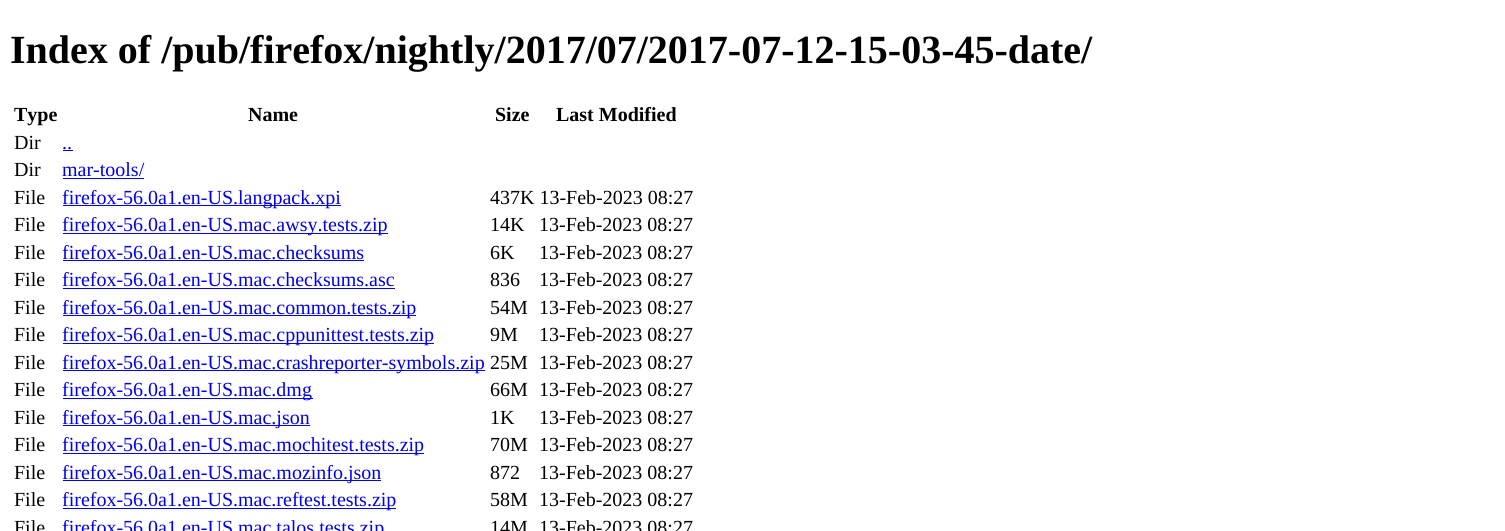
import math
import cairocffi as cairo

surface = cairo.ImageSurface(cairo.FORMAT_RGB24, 1505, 531)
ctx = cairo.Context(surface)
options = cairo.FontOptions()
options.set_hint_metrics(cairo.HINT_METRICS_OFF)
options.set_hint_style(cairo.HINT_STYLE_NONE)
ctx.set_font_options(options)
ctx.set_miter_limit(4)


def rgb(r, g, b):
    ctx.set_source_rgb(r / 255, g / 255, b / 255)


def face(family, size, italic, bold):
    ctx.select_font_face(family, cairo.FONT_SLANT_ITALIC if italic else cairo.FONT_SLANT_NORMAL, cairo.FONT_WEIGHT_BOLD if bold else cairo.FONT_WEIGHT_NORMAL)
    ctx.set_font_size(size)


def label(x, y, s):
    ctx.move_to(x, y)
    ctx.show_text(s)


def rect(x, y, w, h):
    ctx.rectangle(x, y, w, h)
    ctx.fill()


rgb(255, 255, 255)
ctx.paint()
face('Liberation Serif', 40, 0, 1)
rgb(0, 0, 0)
label(10, 63, 'Index of /pub/firefox/nightly/2017/07/2017-07-12-15-03-45-date/')
face('Liberation Serif', 20, 0, 1)
label(14, 121, 'Type')
label(248, 121, 'Name')
label(495, 121, 'Size')
label(556, 121, 'Last Modified')
face('Liberation Serif', 20, 0, 0)
label(14, 149, 'Dir')
rgb(0, 0, 238)
label(62, 149, '..')
rect(63, 150, 10, 1)
rgb(0, 0, 0)
label(14, 176, 'Dir')
rgb(0, 0, 238)
label(62, 176, 'mar-tools/')
rect(63, 178, 81, 1)
rgb(0, 0, 0)
label(14, 204, 'File')
rgb(0, 0, 238)
rect(63, 205, 278, 1)
label(62, 204, 'firefox-56.0a1.en-US.langpack.xpi')
rgb(0, 0, 0)
label(490, 204, '437K 13-Feb-2023 08:27')
label(14, 231, 'File')
rgb(0, 0, 238)
rect(63, 233, 325, 1)
label(62, 231, 'firefox-56.0a1.en-US.mac.awsy.tests.zip')
rgb(0, 0, 0)
label(490, 231, '14K')
label(539, 231, '13-Feb-2023 08:27')
label(14, 259, 'File')
rgb(0, 0, 238)
label(62, 259, 'firefox-56.0a1.en-US.mac.checksums')
rect(63, 260, 301, 1)
rgb(0, 0, 0)
label(490, 259, '6K')
label(539, 259, '13-Feb-2023 08:27')
label(14, 286, 'File')
rgb(0, 0, 238)
label(62, 286, 'firefox-56.0a1.en-US.mac.checksums.asc')
rect(63, 288, 332, 1)
rgb(0, 0, 0)
label(490, 286, '836')
label(539, 286, '13-Feb-2023 08:27')
label(14, 314, 'File')
rgb(0, 0, 238)
rect(63, 315, 353, 1)
label(62, 314, 'firefox-56.0a1.en-US.mac.common.tests.zip')
rgb(0, 0, 0)
label(490, 314, '54M')
label(539, 314, '13-Feb-2023 08:27')
label(14, 341, 'File')
rgb(0, 0, 238)
rect(63, 343, 371, 1)
label(62, 341, 'firefox-56.0a1.en-US.mac.cppunittest.tests.zip')
rgb(0, 0, 0)
label(490, 341, '9M')
label(539, 341, '13-Feb-2023 08:27')
label(14, 369, 'File')
rgb(0, 0, 238)
rect(63, 370, 422, 1)
label(62, 369, 'firefox-56.0a1.en-US.mac.crashreporter-symbols.zip')
rgb(0, 0, 0)
label(490, 369, '25M')
label(539, 369, '13-Feb-2023 08:27')
label(14, 396, 'File')
rgb(0, 0, 238)
rect(63, 398, 250, 1)
label(62, 396, 'firefox-56.0a1.en-US.mac.dmg')
rgb(0, 0, 0)
label(490, 396, '66M')
label(539, 396, '13-Feb-2023 08:27')
label(14, 424, 'File')
rgb(0, 0, 238)
rect(63, 425, 247, 1)
label(62, 424, 'firefox-56.0a1.en-US.mac.json')
rgb(0, 0, 0)
label(490, 424, '1K')
label(539, 424, '13-Feb-2023 08:27')
label(14, 451, 'File')
rgb(0, 0, 238)
rect(63, 453, 361, 1)
label(62, 451, 'firefox-56.0a1.en-US.mac.mochitest.tests.zip')
rgb(0, 0, 0)
label(490, 451, '70M')
label(539, 451, '13-Feb-2023 08:27')
label(14, 479, 'File')
rgb(0, 0, 238)
rect(63, 480, 318, 1)
label(62, 479, 'firefox-56.0a1.en-US.mac.mozinfo.json')
rgb(0, 0, 0)
label(490, 479, '872')
label(539, 479, '13-Feb-2023 08:27')
label(14, 506, 'File')
rgb(0, 0, 238)
rect(63, 508, 333, 1)
label(62, 506, 'firefox-56.0a1.en-US.mac.reftest.tests.zip')
rgb(0, 0, 0)
label(490, 506, '58M')
label(539, 506, '13-Feb-2023 08:27')
label(14, 534, 'File')
rgb(0, 0, 238)
label(62, 534, 'firefox-56.0a1.en-US.mac.talos.tests.zip')
rgb(0, 0, 0)
label(490, 534, '14M')
label(539, 534, '13-Feb-2023 08:27')
surface.write_to_png('render.png')
